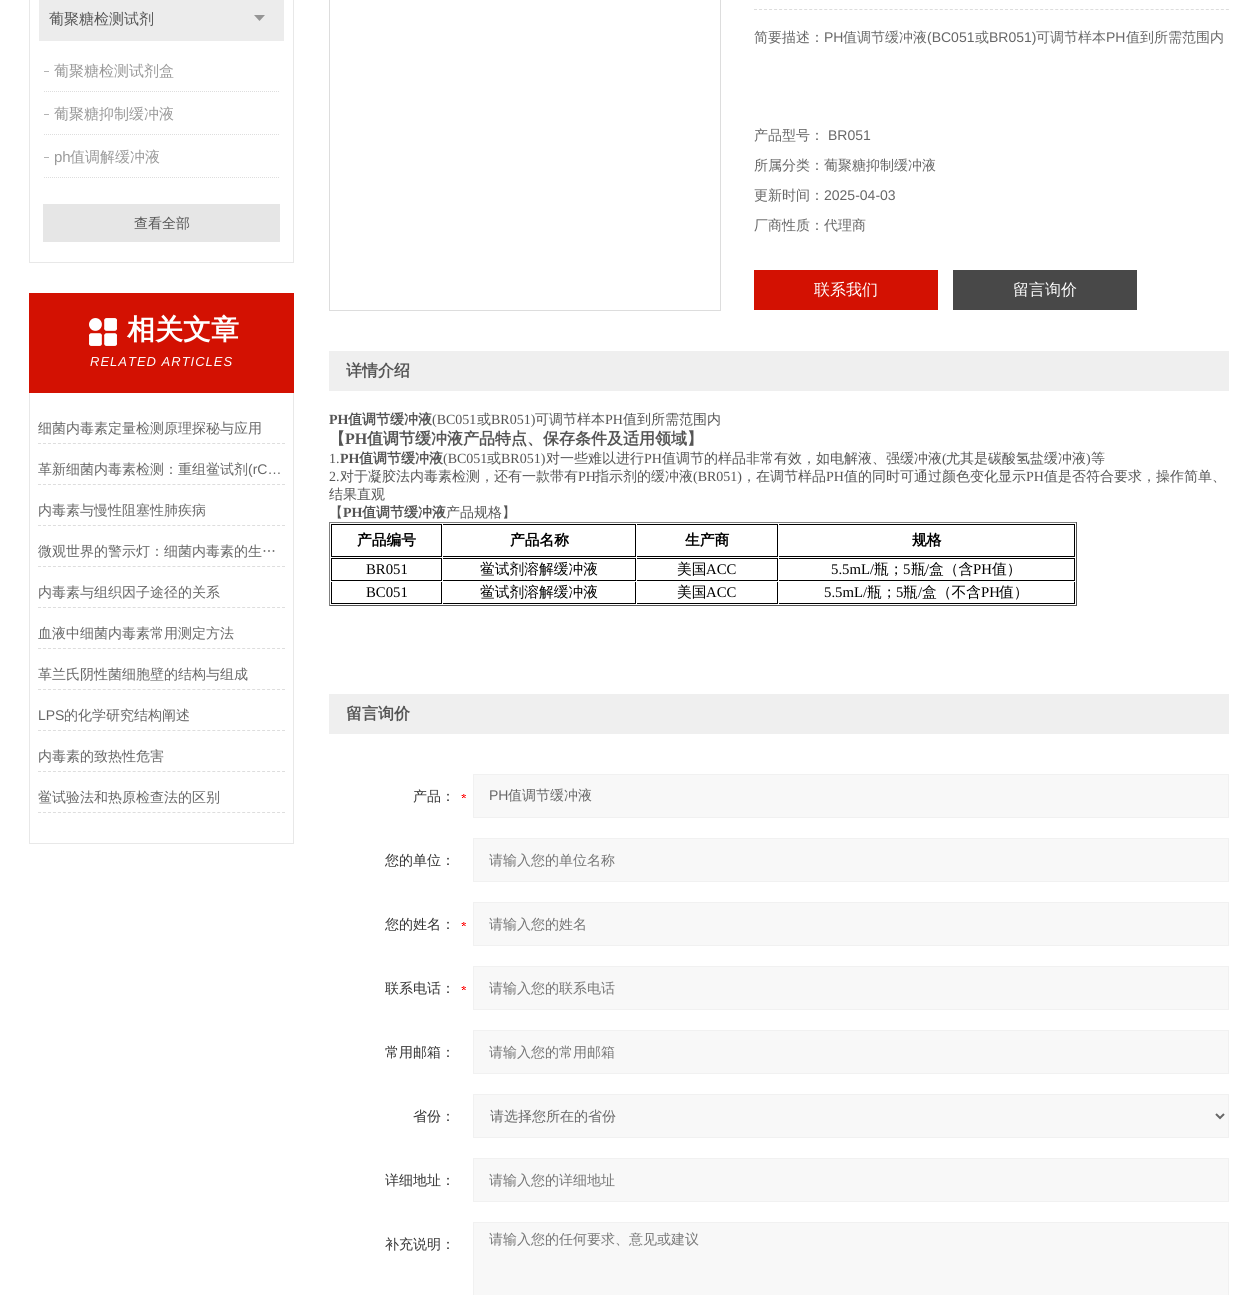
import math
import cairocffi as cairo

surface = cairo.ImageSurface(cairo.FORMAT_RGB24, 1258, 1295)
ctx = cairo.Context(surface)
options = cairo.FontOptions()
options.set_hint_metrics(cairo.HINT_METRICS_OFF)
options.set_hint_style(cairo.HINT_STYLE_NONE)
ctx.set_font_options(options)
ctx.set_miter_limit(4)


def rgb(r, g, b):
    ctx.set_source_rgb(r / 255, g / 255, b / 255)


def face(family, size, italic, bold):
    ctx.select_font_face(family, cairo.FONT_SLANT_ITALIC if italic else cairo.FONT_SLANT_NORMAL, cairo.FONT_WEIGHT_BOLD if bold else cairo.FONT_WEIGHT_NORMAL)
    ctx.set_font_size(size)


def label(x, y, s):
    ctx.move_to(x, y)
    ctx.show_text(s)


def tracked(x, y, s, letter, word):
    ctx.move_to(x, y)
    for ch in s:
        ctx.show_text(ch)
        ctx.rel_move_to(letter + word * (ch == ' '), 0)


def rect(x, y, w, h):
    ctx.rectangle(x, y, w, h)
    ctx.fill()


def image(path, x, y, w, h):
    ctx.save()
    ctx.set_source_surface(cairo.ImageSurface.create_from_png(path), x, y)
    ctx.rectangle(x, y, w, h)
    ctx.fill()
    ctx.restore()


rgb(255, 255, 255)
ctx.paint()
rgb(232, 232, 232)
rect(293, 0, 1, 263)
rect(29, 262, 265, 1)
rect(29, 0, 1, 263)
rgb(236, 236, 236)
rect(39, 0, 245, 41)
face('WenQuanYi Zen Hei Medium', 15, 0, 0)
rgb(85, 85, 85)
label(49, 24, '葡聚糖检测试剂')
image('image0.png', 254, 15, 11, 6)
ctx.new_path()
ctx.move_to(44, 91.5)
ctx.line_to(279, 91.5)
rgb(222, 222, 222)
ctx.set_line_width(1)
ctx.set_dash([1, 1])
ctx.stroke()
rgb(179, 179, 179)
rect(44, 71, 5, 1)
rgb(153, 153, 153)
label(54, 76, '葡聚糖检测试剂盒')
ctx.new_path()
ctx.move_to(44, 134.5)
ctx.line_to(279, 134.5)
rgb(222, 222, 222)
ctx.stroke()
rgb(179, 179, 179)
rect(44, 114, 5, 1)
rgb(153, 153, 153)
label(54, 119, '葡聚糖抑制缓冲液')
ctx.new_path()
ctx.move_to(44, 177.5)
ctx.line_to(279, 177.5)
rgb(222, 222, 222)
ctx.stroke()
rgb(179, 179, 179)
rect(44, 157, 5, 1)
face('Liberation Sans', 15, 0, 0)
rgb(153, 153, 153)
label(54, 162, 'ph')
face('WenQuanYi Zen Hei Medium', 15, 0, 0)
label(70, 162, '值调解缓冲液')
rgb(230, 230, 230)
rect(43, 204, 237, 38)
face('WenQuanYi Zen Hei Medium', 14, 0, 0)
rgb(85, 85, 85)
label(134, 228, '查看全部')
rgb(211, 17, 2)
rect(29, 293, 265, 100)
image('image1.png', 89, 318, 28, 28)
face('WenQuanYi Zen Hei', 28, 0, 1)
rgb(255, 255, 255)
label(127, 339, '相关文章')
face('Liberation Sans', 13, 1, 0)
tracked(90, 366, 'RELATED ARTICLES', 1, 0)
rgb(232, 232, 232)
rect(293, 393, 1, 451)
rect(29, 843, 265, 1)
rect(29, 393, 1, 451)
ctx.new_path()
ctx.move_to(38, 443.5)
ctx.line_to(285, 443.5)
rgb(222, 222, 222)
ctx.set_dash([3, 1.98])
ctx.stroke()
face('WenQuanYi Zen Hei Medium', 14, 0, 0)
rgb(102, 102, 102)
label(38, 433, '细菌内毒素定量检测原理探秘与应用')
ctx.new_path()
ctx.move_to(38, 484.5)
ctx.line_to(285, 484.5)
rgb(222, 222, 222)
ctx.stroke()
rgb(102, 102, 102)
label(38, 474, '革新细菌内毒素检测：重组鲎试剂')
face('Liberation Sans', 14, 0, 0)
label(248, 474, '(rC…')
ctx.new_path()
ctx.move_to(38, 525.5)
ctx.line_to(285, 525.5)
rgb(222, 222, 222)
ctx.stroke()
face('WenQuanYi Zen Hei Medium', 14, 0, 0)
rgb(102, 102, 102)
label(38, 515, '内毒素与慢性阻塞性肺疾病')
ctx.new_path()
ctx.move_to(38, 566.5)
ctx.line_to(285, 566.5)
rgb(222, 222, 222)
ctx.stroke()
rgb(102, 102, 102)
label(38, 556, '微观世界的警示灯：细菌内毒素的生…')
ctx.new_path()
ctx.move_to(38, 607.5)
ctx.line_to(285, 607.5)
rgb(222, 222, 222)
ctx.stroke()
rgb(102, 102, 102)
label(38, 597, '内毒素与组织因子途径的关系')
ctx.new_path()
ctx.move_to(38, 648.5)
ctx.line_to(285, 648.5)
rgb(222, 222, 222)
ctx.stroke()
rgb(102, 102, 102)
label(38, 638, '血液中细菌内毒素常用测定方法')
ctx.new_path()
ctx.move_to(38, 689.5)
ctx.line_to(285, 689.5)
rgb(222, 222, 222)
ctx.stroke()
rgb(102, 102, 102)
label(38, 679, '革兰氏阴性菌细胞壁的结构与组成')
ctx.new_path()
ctx.move_to(38, 730.5)
ctx.line_to(285, 730.5)
rgb(222, 222, 222)
ctx.stroke()
face('Liberation Sans', 14, 0, 0)
rgb(102, 102, 102)
label(38, 720, 'LPS')
face('WenQuanYi Zen Hei Medium', 14, 0, 0)
label(64, 720, '的化学研究结构阐述')
ctx.new_path()
ctx.move_to(38, 771.5)
ctx.line_to(285, 771.5)
rgb(222, 222, 222)
ctx.stroke()
rgb(102, 102, 102)
label(38, 761, '内毒素的致热性危害')
ctx.new_path()
ctx.move_to(38, 812.5)
ctx.line_to(285, 812.5)
rgb(222, 222, 222)
ctx.stroke()
rgb(102, 102, 102)
label(38, 802, '鲎试验法和热原检查法的区别')
ctx.rectangle(329.5, -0.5, 391, 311)
rgb(221, 221, 221)
ctx.set_dash([])
ctx.stroke()
ctx.new_path()
ctx.move_to(754, 9.5)
ctx.line_to(1229, 9.5)
ctx.set_dash([3, 2.02])
ctx.stroke()
rgb(102, 102, 102)
label(754, 42, '简要描述：')
face('Liberation Sans', 14, 0, 0)
label(824, 42, 'PH')
face('WenQuanYi Zen Hei Medium', 14, 0, 0)
label(843, 42, '值调节缓冲液')
face('Liberation Sans', 14, 0, 0)
label(927, 42, '(BC051')
face('WenQuanYi Zen Hei Medium', 14, 0, 0)
label(975, 42, '或')
face('Liberation Sans', 14, 0, 0)
label(989, 42, 'BR051)')
face('WenQuanYi Zen Hei Medium', 14, 0, 0)
label(1036, 42, '可调节样本')
face('Liberation Sans', 14, 0, 0)
label(1106, 42, 'PH')
face('WenQuanYi Zen Hei Medium', 14, 0, 0)
label(1126, 42, '值到所需范围内')
label(754, 140, '产品型号：')
face('Liberation Sans', 14, 0, 0)
label(828, 140, 'BR051')
face('WenQuanYi Zen Hei Medium', 14, 0, 0)
label(754, 170, '所属分类：葡聚糖抑制缓冲液')
label(754, 200, '更新时间：')
face('Liberation Sans', 14, 0, 0)
label(824, 200, '2025-04-03')
face('WenQuanYi Zen Hei Medium', 14, 0, 0)
label(754, 230, '厂商性质：代理商')
rgb(211, 17, 2)
rect(754, 270, 184, 40)
face('WenQuanYi Zen Hei Medium', 16, 0, 0)
rgb(255, 255, 255)
label(814, 295, '联系我们')
rgb(72, 72, 72)
rect(953, 270, 184, 40)
rgb(255, 255, 255)
label(1013, 295, '留言询价')
rgb(239, 239, 239)
rect(329, 351, 900, 40)
face('WenQuanYi Zen Hei', 16, 0, 1)
rgb(85, 85, 85)
label(346, 376, '详情介绍')
face('Liberation Serif', 14, 0, 1)
label(329, 424, 'PH')
face('WenQuanYi Zen Hei', 14, 0, 1)
label(348, 424, '值调节缓冲液')
face('Liberation Serif', 14, 0, 0)
label(432, 424, '(BC051')
face('WenQuanYi Zen Hei Medium', 14, 0, 0)
label(477, 424, '或')
face('Liberation Serif', 14, 0, 0)
label(491, 424, 'BR051)')
face('WenQuanYi Zen Hei Medium', 14, 0, 0)
label(535, 424, '可调节样本')
face('Liberation Serif', 14, 0, 0)
label(605, 424, 'PH')
face('WenQuanYi Zen Hei Medium', 14, 0, 0)
label(623, 424, '值到所需范围内')
face('WenQuanYi Zen Hei', 16, 0, 1)
label(329, 444, '【')
face('Liberation Serif', 16, 0, 1)
label(345, 444, 'PH')
face('WenQuanYi Zen Hei', 16, 0, 1)
label(367, 444, '值调节缓冲液产品特点、保存条件及适用领域】')
face('Liberation Serif', 14, 0, 0)
label(329, 463, '1.')
face('Liberation Serif', 14, 0, 1)
label(340, 463, 'PH')
face('WenQuanYi Zen Hei', 14, 0, 1)
label(359, 463, '值调节缓冲液')
face('Liberation Serif', 14, 0, 0)
label(443, 463, '(BC051')
face('WenQuanYi Zen Hei Medium', 14, 0, 0)
label(487, 463, '或')
face('Liberation Serif', 14, 0, 0)
label(501, 463, 'BR051)')
face('WenQuanYi Zen Hei Medium', 14, 0, 0)
label(546, 463, '对一些难以进行')
face('Liberation Serif', 14, 0, 0)
label(644, 463, 'PH')
face('WenQuanYi Zen Hei Medium', 14, 0, 0)
label(662, 463, '值调节的样品非常有效，如电解液、强缓冲液')
face('Liberation Serif', 14, 0, 0)
label(942, 463, '(')
face('WenQuanYi Zen Hei Medium', 14, 0, 0)
label(946, 463, '尤其是碳酸氢盐缓冲液')
face('Liberation Serif', 14, 0, 0)
label(1086, 463, ')')
face('WenQuanYi Zen Hei Medium', 14, 0, 0)
label(1091, 463, '等')
face('Liberation Serif', 14, 0, 0)
label(329, 481, '2.')
face('WenQuanYi Zen Hei Medium', 14, 0, 0)
label(340, 481, '对于凝胶法内毒素检测，还有一款带有')
face('Liberation Serif', 14, 0, 0)
label(578, 481, 'PH')
face('WenQuanYi Zen Hei Medium', 14, 0, 0)
label(595, 481, '指示剂的缓冲液')
face('Liberation Serif', 14, 0, 0)
label(693, 481, '(BR051)')
face('WenQuanYi Zen Hei Medium', 14, 0, 0)
label(742, 481, '，在调节样品')
face('Liberation Serif', 14, 0, 0)
label(826, 481, 'PH')
face('WenQuanYi Zen Hei Medium', 14, 0, 0)
label(844, 481, '值的同时可通过颜色变化显示')
face('Liberation Serif', 14, 0, 0)
label(1026, 481, 'PH')
face('WenQuanYi Zen Hei Medium', 14, 0, 0)
label(1044, 481, '值是否符合要求，操作简单、')
label(329, 499, '结果直观')
label(329, 517, '【')
face('Liberation Serif', 14, 0, 1)
label(343, 517, 'PH')
face('WenQuanYi Zen Hei', 14, 0, 1)
label(362, 517, '值调节缓冲液')
face('WenQuanYi Zen Hei Medium', 14, 0, 0)
label(446, 517, '产品规格】')
rgb(128, 128, 128)
rect(329, 522, 748, 1)
rgb(85, 85, 85)
rect(1076, 522, 1, 84)
rect(329, 605, 748, 1)
rgb(128, 128, 128)
rect(329, 522, 1, 84)
ctx.rectangle(331.5, 524.5, 110, 32)
rgb(0, 0, 0)
ctx.set_dash([])
ctx.stroke()
face('WenQuanYi Zen Hei', 14.75, 0, 1)
label(357, 545, '产品编号')
rect(443, 524, 193, 1)
rect(635, 524, 1, 33)
rect(443, 556, 193, 1)
label(510, 545, '产品名称')
rect(637, 524, 141, 1)
rect(777, 524, 1, 33)
rect(637, 556, 141, 1)
label(685, 545, '生产商')
rect(779, 524, 296, 1)
rect(1074, 524, 1, 33)
rect(779, 556, 296, 1)
label(912, 545, '规格')
ctx.rectangle(331.5, 558.5, 110, 22)
ctx.stroke()
face('Liberation Serif', 14.75, 0, 0)
label(366, 574, 'BR051')
rect(443, 558, 193, 1)
rect(635, 558, 1, 23)
rect(443, 580, 193, 1)
face('WenQuanYi Zen Hei Medium', 14.75, 0, 0)
label(480, 574, '鲎试剂溶解缓冲液')
rect(637, 558, 141, 1)
rect(777, 558, 1, 23)
rect(637, 580, 141, 1)
label(677, 574, '美国')
face('Liberation Serif', 14.75, 0, 0)
label(706, 574, 'ACC')
rect(779, 558, 296, 1)
rect(1074, 558, 1, 23)
rect(779, 580, 296, 1)
label(831, 574, '5.5mL/')
face('WenQuanYi Zen Hei Medium', 14.75, 0, 0)
label(874, 574, '瓶；')
face('Liberation Serif', 14.75, 0, 0)
label(903, 574, '5')
face('WenQuanYi Zen Hei Medium', 14.75, 0, 0)
label(911, 574, '瓶')
face('Liberation Serif', 14.75, 0, 0)
label(925, 574, '/')
face('WenQuanYi Zen Hei Medium', 14.75, 0, 0)
label(929, 574, '盒（含')
face('Liberation Serif', 14.75, 0, 0)
label(973, 574, 'PH')
face('WenQuanYi Zen Hei Medium', 14.75, 0, 0)
label(992, 574, '值）')
rect(441, 582, 1, 22)
rect(331, 603, 111, 1)
rect(331, 582, 1, 22)
face('Liberation Serif', 14.75, 0, 0)
label(366, 597, 'BC051')
rect(635, 582, 1, 22)
rect(443, 603, 193, 1)
face('WenQuanYi Zen Hei Medium', 14.75, 0, 0)
label(480, 597, '鲎试剂溶解缓冲液')
rect(777, 582, 1, 22)
rect(637, 603, 141, 1)
label(677, 597, '美国')
face('Liberation Serif', 14.75, 0, 0)
label(706, 597, 'ACC')
rect(1074, 582, 1, 22)
rect(779, 603, 296, 1)
label(824, 597, '5.5mL/')
face('WenQuanYi Zen Hei Medium', 14.75, 0, 0)
label(867, 597, '瓶；')
face('Liberation Serif', 14.75, 0, 0)
label(896, 597, '5')
face('WenQuanYi Zen Hei Medium', 14.75, 0, 0)
label(903, 597, '瓶')
face('Liberation Serif', 14.75, 0, 0)
label(918, 597, '/')
face('WenQuanYi Zen Hei Medium', 14.75, 0, 0)
label(922, 597, '盒（不含')
face('Liberation Serif', 14.75, 0, 0)
label(981, 597, 'PH')
face('WenQuanYi Zen Hei Medium', 14.75, 0, 0)
label(999, 597, '值）')
rgb(239, 239, 239)
rect(329, 694, 900, 40)
face('WenQuanYi Zen Hei', 16, 0, 1)
rgb(85, 85, 85)
label(346, 719, '留言询价')
image('image2.png', 461, 794, 5, 4)
face('WenQuanYi Zen Hei Medium', 14, 0, 0)
rgb(51, 51, 51)
label(413, 801, '产品：')
rgb(248, 248, 248)
ctx.rectangle(473.5, 774.5, 755, 43)
ctx.fill_preserve()
rgb(241, 241, 241)
ctx.stroke()
face('Liberation Sans', 14, 0, 0)
rgb(102, 102, 102)
label(489, 800, 'PH')
face('WenQuanYi Zen Hei Medium', 14, 0, 0)
label(508, 800, '值调节缓冲液')
rgb(51, 51, 51)
label(385, 865, '您的单位：')
rgb(248, 248, 248)
ctx.rectangle(473.5, 838.5, 755, 43)
ctx.fill_preserve()
rgb(241, 241, 241)
ctx.stroke()
rgb(117, 117, 117)
label(489, 865, '请输入您的单位名称')
image('image2.png', 461, 922, 5, 4)
rgb(51, 51, 51)
label(385, 929, '您的姓名：')
rgb(248, 248, 248)
ctx.rectangle(473.5, 902.5, 755, 43)
ctx.fill_preserve()
rgb(241, 241, 241)
ctx.stroke()
rgb(117, 117, 117)
label(489, 929, '请输入您的姓名')
image('image2.png', 461, 986, 5, 4)
rgb(51, 51, 51)
label(385, 993, '联系电话：')
rgb(248, 248, 248)
ctx.rectangle(473.5, 966.5, 755, 43)
ctx.fill_preserve()
rgb(241, 241, 241)
ctx.stroke()
rgb(117, 117, 117)
label(489, 993, '请输入您的联系电话')
rgb(51, 51, 51)
label(385, 1057, '常用邮箱：')
rgb(248, 248, 248)
ctx.rectangle(473.5, 1030.5, 755, 43)
ctx.fill_preserve()
rgb(241, 241, 241)
ctx.stroke()
rgb(117, 117, 117)
label(489, 1057, '请输入您的常用邮箱')
rgb(51, 51, 51)
label(413, 1121, '省份：')
rgb(248, 248, 248)
ctx.rectangle(473.5, 1094.5, 755, 43)
ctx.fill_preserve()
rgb(241, 241, 241)
ctx.stroke()
ctx.new_path()
ctx.move_to(1216, 1114)
ctx.line_to(1220, 1118)
ctx.line_to(1224, 1114)
rgb(102, 102, 102)
ctx.set_line_width(2)
ctx.stroke()
label(490, 1121, '请选择您所在的省份')
rgb(51, 51, 51)
label(385, 1185, '详细地址：')
rgb(248, 248, 248)
ctx.rectangle(473.5, 1158.5, 755, 43)
ctx.fill_preserve()
rgb(241, 241, 241)
ctx.set_line_width(1)
ctx.stroke()
rgb(117, 117, 117)
label(489, 1185, '请输入您的详细地址')
rgb(51, 51, 51)
label(385, 1249, '补充说明：')
rgb(248, 248, 248)
ctx.rectangle(473.5, 1222.5, 755, 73)
ctx.fill_preserve()
rgb(241, 241, 241)
ctx.stroke()
rgb(117, 117, 117)
label(489, 1244, '请输入您的任何要求、意见或建议')
surface.write_to_png('render.png')
